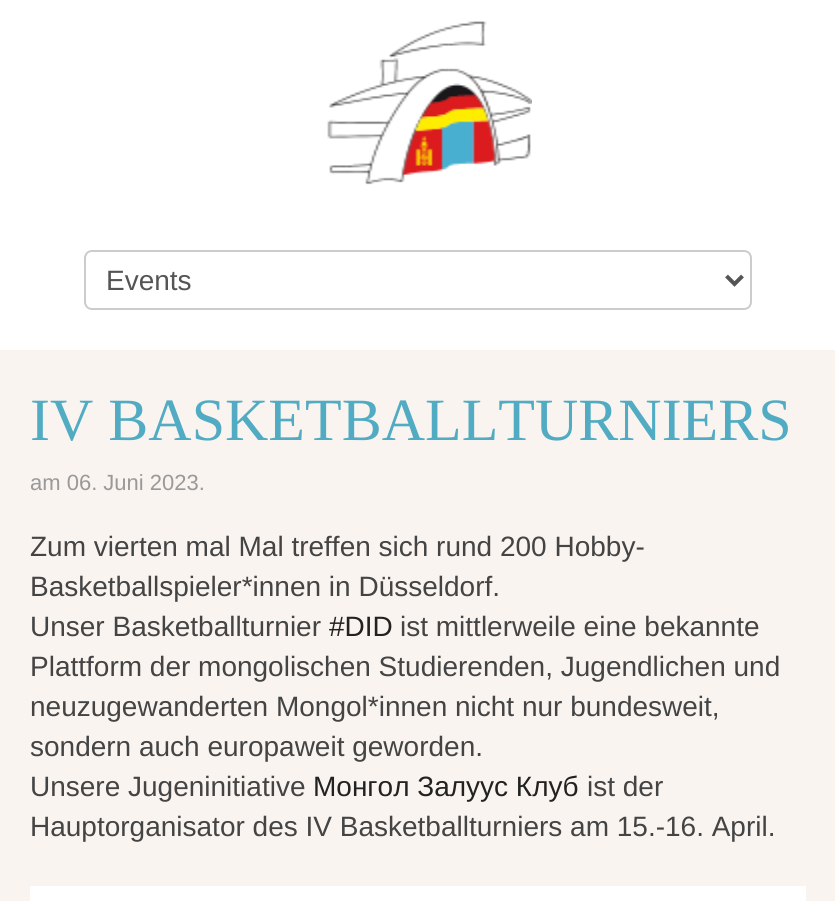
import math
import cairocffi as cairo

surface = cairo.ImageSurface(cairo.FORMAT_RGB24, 835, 901)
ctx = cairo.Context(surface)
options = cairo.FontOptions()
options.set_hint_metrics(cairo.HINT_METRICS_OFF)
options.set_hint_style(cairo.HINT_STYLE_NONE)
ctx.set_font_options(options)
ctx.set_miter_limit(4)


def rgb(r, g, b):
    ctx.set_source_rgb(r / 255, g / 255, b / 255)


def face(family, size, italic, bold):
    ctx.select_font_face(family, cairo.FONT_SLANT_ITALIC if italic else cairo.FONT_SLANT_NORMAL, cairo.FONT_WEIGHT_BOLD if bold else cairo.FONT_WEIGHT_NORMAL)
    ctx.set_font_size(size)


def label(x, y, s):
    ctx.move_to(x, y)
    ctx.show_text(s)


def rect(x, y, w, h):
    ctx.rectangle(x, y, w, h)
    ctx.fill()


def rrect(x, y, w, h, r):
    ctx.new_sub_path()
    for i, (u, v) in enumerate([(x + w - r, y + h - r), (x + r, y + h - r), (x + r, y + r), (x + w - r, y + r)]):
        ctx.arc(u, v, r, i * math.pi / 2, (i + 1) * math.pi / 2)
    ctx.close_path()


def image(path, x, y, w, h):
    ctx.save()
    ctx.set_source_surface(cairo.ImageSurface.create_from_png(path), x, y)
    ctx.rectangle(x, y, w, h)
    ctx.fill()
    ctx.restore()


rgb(249, 244, 240)
ctx.paint()
rgb(255, 255, 255)
rect(0, 0, 835, 350)
image('image0.png', 327, 21, 205, 164)
rrect(85, 251, 666, 58, 7)
rgb(204, 204, 204)
ctx.stroke()
ctx.new_path()
ctx.move_to(726.5, 276)
ctx.line_to(734.5, 284)
ctx.line_to(742.5, 276)
rgb(85, 85, 85)
ctx.set_line_width(4)
ctx.stroke()
face('Liberation Sans', 28, 0, 0)
label(106, 290, 'Events')
face('Liberation Serif', 60, 0, 0)
rgb(80, 171, 195)
label(30, 440, 'IV BASKETBALLTURNIERS')
face('Liberation Sans', 22, 0, 0)
rgb(153, 153, 153)
label(30, 490, 'am 06. Juni 2023.')
face('Liberation Sans', 28, 0, 0)
rgb(68, 68, 68)
label(30, 556, 'Zum vierten mal Mal treffen sich rund 200 Hobby-')
label(30, 596, 'Basketballspieler*innen in Düsseldorf.')
label(30, 636, 'Unser Basketballturnier')
rgb(34, 34, 34)
label(329, 636, '#DID')
rgb(68, 68, 68)
label(400, 636, 'ist mittlerweile eine bekannte')
label(30, 676, 'Plattform der mongolischen Studierenden, Jugendlichen und')
label(30, 716, 'neuzugewanderten Mongol*innen nicht nur bundesweit,')
label(30, 756, 'sondern auch europaweit geworden.')
label(30, 796, 'Unsere Jugeninitiative')
rgb(34, 34, 34)
label(313, 796, 'Монгол Залуус Клуб')
rgb(68, 68, 68)
label(587, 796, 'ist der')
label(30, 836, 'Hauptorganisator des IV Basketballturniers am 15.-16. April.')
rgb(255, 255, 255)
rect(30, 886, 776, 15)
surface.write_to_png('render.png')
